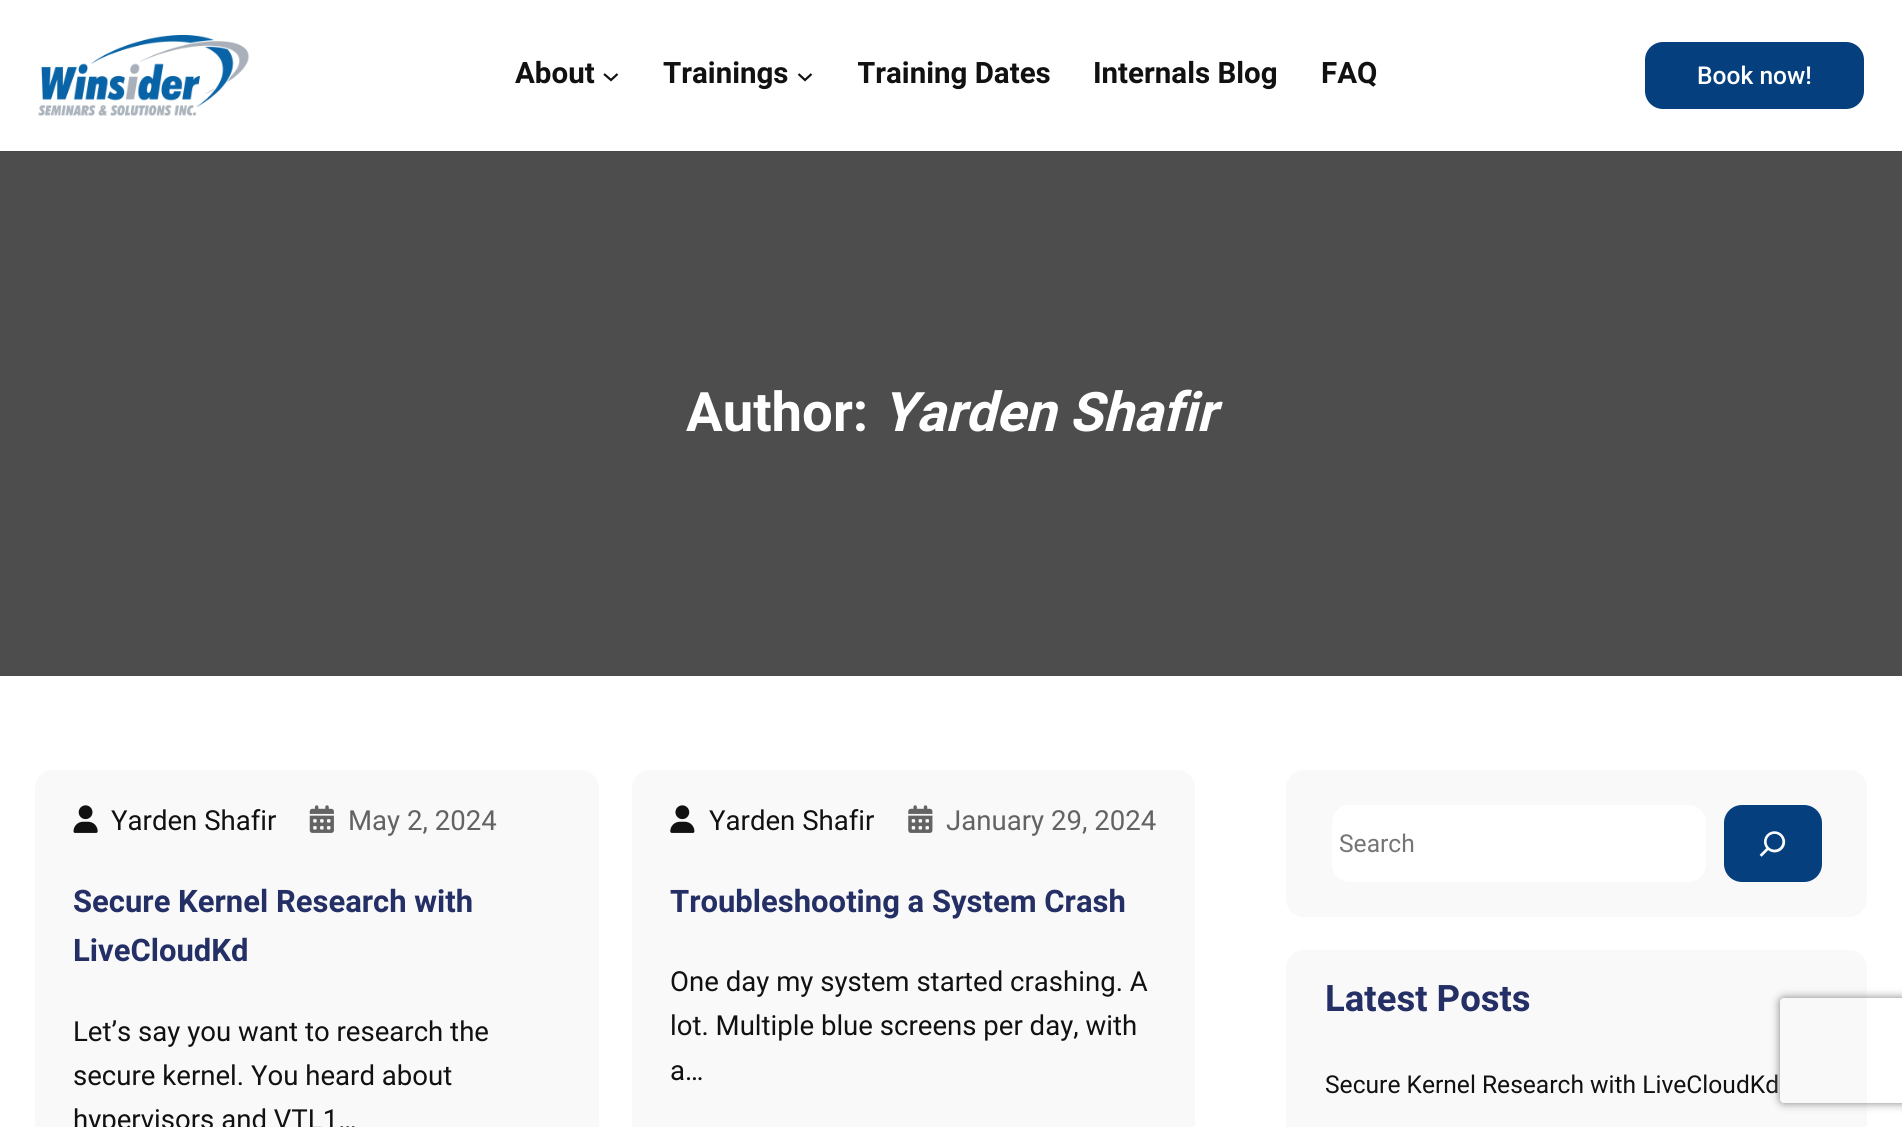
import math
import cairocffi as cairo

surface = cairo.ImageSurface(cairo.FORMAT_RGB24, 1902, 1127)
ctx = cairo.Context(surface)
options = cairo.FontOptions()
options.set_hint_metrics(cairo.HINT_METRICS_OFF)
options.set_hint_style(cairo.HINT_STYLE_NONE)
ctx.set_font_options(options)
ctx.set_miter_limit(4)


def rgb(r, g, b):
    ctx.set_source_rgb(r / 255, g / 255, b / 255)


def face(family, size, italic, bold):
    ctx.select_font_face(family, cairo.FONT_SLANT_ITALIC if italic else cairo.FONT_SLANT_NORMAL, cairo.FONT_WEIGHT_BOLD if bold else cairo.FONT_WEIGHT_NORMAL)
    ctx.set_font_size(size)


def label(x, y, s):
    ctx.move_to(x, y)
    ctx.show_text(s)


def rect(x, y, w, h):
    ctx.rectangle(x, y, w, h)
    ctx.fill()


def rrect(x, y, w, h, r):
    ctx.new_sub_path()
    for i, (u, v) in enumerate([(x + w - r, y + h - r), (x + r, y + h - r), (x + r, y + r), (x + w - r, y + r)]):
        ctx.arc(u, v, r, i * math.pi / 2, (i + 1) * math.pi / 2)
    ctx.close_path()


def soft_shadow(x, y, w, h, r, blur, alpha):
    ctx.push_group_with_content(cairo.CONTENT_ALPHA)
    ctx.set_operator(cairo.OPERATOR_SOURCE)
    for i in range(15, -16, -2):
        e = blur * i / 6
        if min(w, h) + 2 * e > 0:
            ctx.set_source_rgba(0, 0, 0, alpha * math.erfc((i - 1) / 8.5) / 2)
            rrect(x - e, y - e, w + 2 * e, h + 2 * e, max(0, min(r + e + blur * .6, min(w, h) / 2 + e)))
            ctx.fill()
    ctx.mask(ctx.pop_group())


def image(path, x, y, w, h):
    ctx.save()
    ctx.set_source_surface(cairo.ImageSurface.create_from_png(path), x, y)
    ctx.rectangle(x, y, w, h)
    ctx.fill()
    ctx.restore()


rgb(255, 255, 255)
ctx.paint()
rgb(77, 77, 77)
rect(0, 151, 1902, 525)
ctx.rectangle(-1, -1, 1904, 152)
ctx.set_source_rgba(0, 0, 0, 0.05)
ctx.stroke()
rgb(255, 255, 255)
rect(0, 150, 1902, 1)
image('image0.png', 38, 35, 211, 81)
face('Roboto', 29.5, 0, 1)
rgb(17, 17, 17)
label(515, 83, 'About')
ctx.new_path()
ctx.move_to(604, 74)
ctx.line_to(611, 80)
ctx.line_to(617.5, 74)
ctx.set_line_width(2.2)
ctx.stroke()
label(663, 83, 'Trainings')
ctx.new_path()
ctx.move_to(798.5, 74)
ctx.line_to(805, 80)
ctx.line_to(811.5, 74)
ctx.stroke()
ctx.save()
ctx.rectangle(858, 54, 192, 42)
ctx.clip()
label(857, 83, 'Training Dates')
ctx.restore()
label(1093, 83, 'Internals Blog')
label(1321, 83, 'FAQ')
rgb(5, 63, 126)
rrect(1645, 42, 219, 67, 18)
ctx.fill()
face('Roboto Medium', 24.6, 0, 0)
rgb(255, 255, 255)
label(1697, 84, 'Book now!')
face('Roboto', 54.5, 0, 1)
label(686, 431, 'Author:')
face('Roboto', 54.5, 1, 1)
label(882, 431, 'Yarden Shafir')
rgb(249, 249, 249)
rrect(35, 770, 564, 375, 18)
ctx.fill()
image('image1.png', 73, 805, 25, 28)
face('Roboto', 27.6, 0, 0)
rgb(17, 17, 17)
label(111, 830, 'Yarden Shafir')
image('image2.png', 309, 805, 25, 28)
rgb(99, 99, 99)
label(348, 830, 'May 2, 2024')
face('Roboto', 31, 0, 1)
rgb(36, 47, 101)
label(73, 912, 'Secure Kernel Research with')
label(73, 961, 'LiveCloudKd')
face('Roboto', 27.6, 0, 0)
rgb(17, 17, 17)
label(73, 1041, 'Let’s say you want to research the')
label(73, 1085, 'secure kernel. You heard about')
label(73, 1129, 'hypervisors and VTL1…')
rgb(249, 249, 249)
rrect(632, 770, 563, 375, 18)
ctx.fill()
image('image3.png', 670, 805, 25, 28)
rgb(17, 17, 17)
label(709, 830, 'Yarden Shafir')
image('image4.png', 908, 805, 25, 28)
rgb(99, 99, 99)
label(946, 830, 'January 29, 2024')
face('Roboto', 31, 0, 1)
rgb(36, 47, 101)
label(670, 912, 'Troubleshooting a System Crash')
face('Roboto', 27.6, 0, 0)
rgb(17, 17, 17)
label(670, 991, 'One day my system started crashing. A')
label(670, 1035, 'lot. Multiple blue screens per day, with')
label(670, 1080, 'a…')
rgb(249, 249, 249)
rrect(1286, 770, 581, 147, 18)
ctx.fill()
rgb(255, 255, 255)
rrect(1332, 805, 374, 77, 18)
ctx.fill()
face('Roboto', 24.6, 0, 0)
rgb(117, 117, 117)
label(1339, 852, 'Search')
rgb(5, 63, 126)
rrect(1724, 805, 98, 77, 18)
ctx.fill()
image('image5.png', 1759, 831, 27, 26)
rgb(249, 249, 249)
rrect(1286, 950, 581, 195, 18)
ctx.fill()
face('Roboto', 36.5, 0, 1)
rgb(36, 47, 101)
label(1325, 1011, 'Latest Posts')
face('Roboto', 24.6, 0, 0)
rgb(17, 17, 17)
label(1325, 1093, 'Secure Kernel Research with LiveCloudKd')
ctx.save()
ctx.set_fill_rule(cairo.FILL_RULE_EVEN_ODD)
ctx.new_path()
ctx.move_to(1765, 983)
ctx.line_to(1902, 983)
ctx.line_to(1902, 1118)
ctx.line_to(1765, 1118)
ctx.close_path()
ctx.move_to(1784, 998)
ctx.line_to(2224, 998)
ctx.curve_to(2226, 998, 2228, 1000, 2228, 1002)
ctx.line_to(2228, 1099)
ctx.curve_to(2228, 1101, 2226, 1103, 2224, 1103)
ctx.line_to(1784, 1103)
ctx.curve_to(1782, 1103, 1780, 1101, 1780, 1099)
ctx.line_to(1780, 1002)
ctx.curve_to(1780, 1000, 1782, 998, 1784, 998)
ctx.close_path()
ctx.clip()
rgb(128, 128, 128)
soft_shadow(1780, 998, 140, 105, 4, 4.5, 1)
ctx.restore()
surface.write_to_png('render.png')
